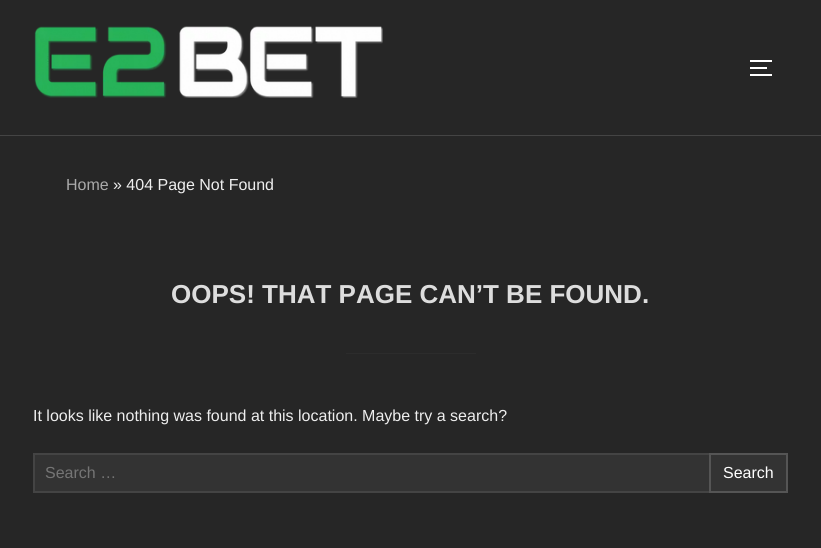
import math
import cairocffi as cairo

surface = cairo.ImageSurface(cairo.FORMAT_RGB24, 821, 548)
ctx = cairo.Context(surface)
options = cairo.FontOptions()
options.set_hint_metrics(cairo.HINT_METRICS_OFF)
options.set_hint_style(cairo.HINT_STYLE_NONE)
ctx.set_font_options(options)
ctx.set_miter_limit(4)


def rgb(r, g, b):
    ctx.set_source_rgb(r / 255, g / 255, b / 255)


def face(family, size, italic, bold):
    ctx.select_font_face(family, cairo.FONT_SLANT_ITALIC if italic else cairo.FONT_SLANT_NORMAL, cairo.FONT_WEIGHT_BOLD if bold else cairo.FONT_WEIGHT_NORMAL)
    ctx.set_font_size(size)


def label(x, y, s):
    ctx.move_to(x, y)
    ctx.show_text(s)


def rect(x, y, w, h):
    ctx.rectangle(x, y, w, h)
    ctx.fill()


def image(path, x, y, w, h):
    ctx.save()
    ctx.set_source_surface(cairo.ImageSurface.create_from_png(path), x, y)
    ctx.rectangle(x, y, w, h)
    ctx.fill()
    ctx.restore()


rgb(38, 38, 38)
ctx.paint()
rgb(68, 68, 68)
rect(0, 135, 821, 1)
image('image0.png', 34, 26, 349, 72)
rgb(255, 255, 255)
rect(750, 60, 22, 2)
rect(750, 67, 17, 2)
rect(750, 74, 22, 2)
face('Liberation Sans', 16, 0, 0)
rgb(170, 170, 170)
label(66, 190, 'Home')
rgb(238, 238, 238)
label(113, 190, '» 404 Page Not Found')
face('Liberation Sans', 26, 0, 1)
rgb(221, 221, 221)
label(171, 303, 'OOPS! THAT PAGE CAN’T BE FOUND.')
rgb(44, 44, 44)
rect(346, 353, 130, 1)
face('Liberation Sans', 16, 0, 0)
rgb(238, 238, 238)
label(33, 421, 'It looks like nothing was found at this location. Maybe try a search?')
rgb(51, 51, 51)
ctx.rectangle(34, 454, 753, 38)
ctx.fill_preserve()
rgb(68, 68, 68)
ctx.stroke()
rgb(117, 117, 117)
label(45, 478, 'Search …')
ctx.rectangle(710, 454, 77, 38)
rgb(85, 85, 85)
ctx.stroke()
rgb(255, 255, 255)
label(723, 478, 'Search')
surface.write_to_png('render.png')
